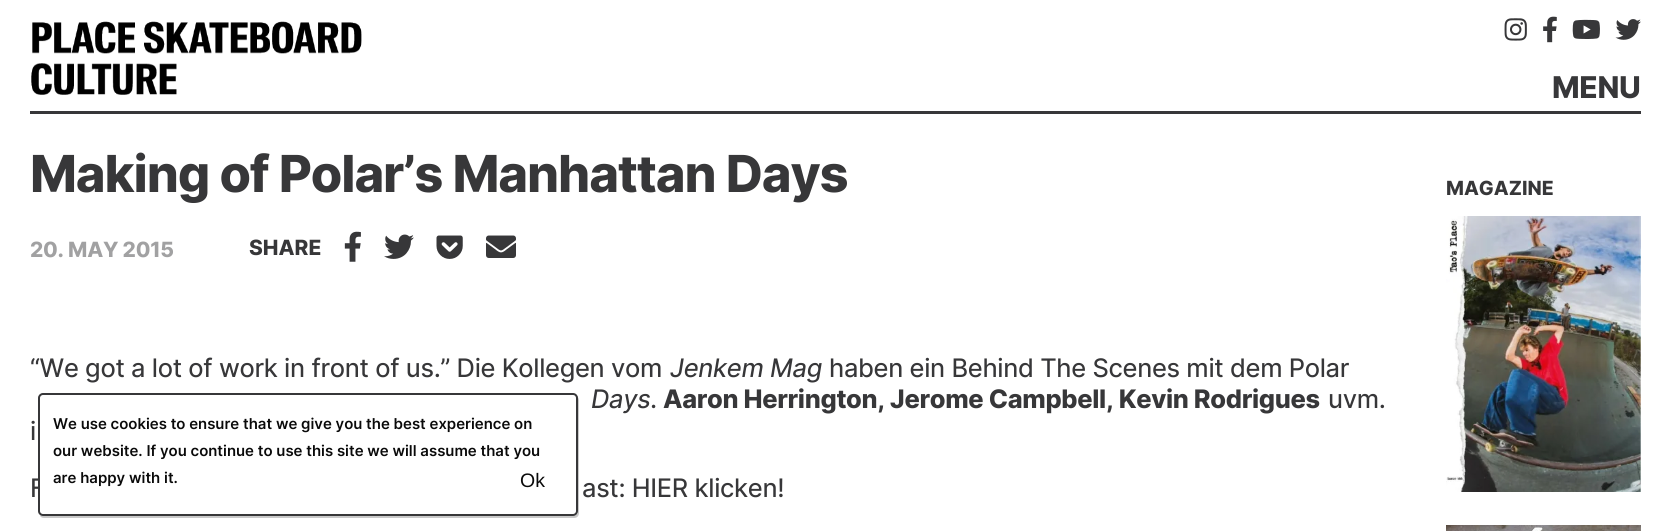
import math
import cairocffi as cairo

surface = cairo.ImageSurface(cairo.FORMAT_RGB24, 1670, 531)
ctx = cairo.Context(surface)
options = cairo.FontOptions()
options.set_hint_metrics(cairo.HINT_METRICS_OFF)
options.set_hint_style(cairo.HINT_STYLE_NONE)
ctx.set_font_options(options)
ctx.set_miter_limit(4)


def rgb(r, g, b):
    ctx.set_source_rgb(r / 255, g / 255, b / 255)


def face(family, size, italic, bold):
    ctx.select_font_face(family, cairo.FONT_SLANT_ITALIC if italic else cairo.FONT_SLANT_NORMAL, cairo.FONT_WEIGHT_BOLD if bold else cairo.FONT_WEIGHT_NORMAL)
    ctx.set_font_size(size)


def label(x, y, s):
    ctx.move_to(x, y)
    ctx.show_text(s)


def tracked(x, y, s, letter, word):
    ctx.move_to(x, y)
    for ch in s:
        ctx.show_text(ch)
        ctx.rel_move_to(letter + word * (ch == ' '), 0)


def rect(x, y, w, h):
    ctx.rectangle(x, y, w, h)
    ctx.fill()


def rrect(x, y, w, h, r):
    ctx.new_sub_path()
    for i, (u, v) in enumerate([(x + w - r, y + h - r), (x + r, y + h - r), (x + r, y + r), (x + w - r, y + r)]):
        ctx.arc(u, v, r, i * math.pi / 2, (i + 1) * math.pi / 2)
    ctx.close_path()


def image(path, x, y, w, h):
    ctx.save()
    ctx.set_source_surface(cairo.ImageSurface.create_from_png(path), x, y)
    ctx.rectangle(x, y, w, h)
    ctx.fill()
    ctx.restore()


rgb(255, 255, 255)
ctx.paint()
rgb(55, 55, 57)
rect(30, 111, 1611, 3)
image('image0.png', 31, 21, 331, 74)
image('image1.png', 1504, 18, 23, 23)
image('image2.png', 1543, 16, 14, 27)
image('image3.png', 1572, 19, 28, 20)
image('image4.png', 1615, 19, 26, 21)
face('Inter ExtraBold', 30, 0, 0)
tracked(1552, 98, 'MENU', -0.33, 0)
face('Inter ExtraBold', 51, 0, 0)
tracked(30, 192, 'Making of Polar’s Manhattan Days', -1.1, 0)
face('Inter ExtraBold', 21, 0, 0)
rgb(161, 161, 162)
tracked(30, 257, '20. MAY 2015', -0.25, 0)
rgb(55, 55, 57)
label(249, 255, 'SHARE')
image('image5.png', 344, 231, 17, 31)
image('image6.png', 384, 234, 30, 25)
image('image7.png', 436, 235, 27, 24)
image('image8.png', 486, 235, 30, 23)
face('Inter Medium', 25.5, 0, 0)
tracked(30, 377, '“We got a lot of work in front of us.” Die Kollegen vom', -0.33, 0)
face('Inter Medium', 25.5, 1, 0)
tracked(670, 377, 'Jenkem Mag', -0.33, 0)
face('Inter Medium', 25.5, 0, 0)
tracked(829, 377, 'haben ein Behind The Scenes mit dem Polar', -0.33, 0)
face('Inter Medium', 25.5, 1, 0)
tracked(591, 408, 'Days', -0.33, 0)
face('Inter Medium', 25.5, 0, 0)
tracked(650, 408, '.', -0.33, 0)
face('Inter ExtraBold', 25.5, 0, 0)
tracked(663, 408, 'Aaron Herrington, Jerome Campbell, Kevin Rodrigues', -0.33, 0)
face('Inter Medium', 25.5, 0, 0)
tracked(1328, 408, 'uvm.', -0.33, 0)
tracked(30, 440, 'i', -0.33, 0)
tracked(30, 497, 'F', -0.33, 0)
tracked(582, 497, 'ast: HIER klicken!', -0.33, 0)
face('Inter ExtraBold', 19.5, 0, 0)
label(1446, 195, 'MAGAZINE')
image('image9.png', 1446, 216, 195, 276)
image('image10.png', 1446, 525, 195, 6)
ctx.set_source_rgba(0.561, 0.561, 0.561, 0.48)
ctx.new_path()
ctx.move_to(40, 515)
ctx.curve_to(40, 517, 42, 518, 44, 518)
ctx.line_to(574, 518)
ctx.curve_to(577, 518, 579, 516, 579, 513)
ctx.line_to(579, 400)
ctx.curve_to(579, 399, 578, 397, 577, 396)
ctx.line_to(578, 512)
ctx.curve_to(578, 514, 575, 516, 573, 516)
ctx.line_to(42, 516)
ctx.close_path()
ctx.fill()
rgb(255, 255, 255)
rrect(39, 394, 538, 121, 4)
ctx.fill_preserve()
rgb(55, 55, 57)
ctx.stroke()
face('Inter SemiBold', 15, 0, 0)
rgb(10, 10, 10)
label(53, 429, 'We use cookies to ensure that we give you the best experience on')
label(53, 456, 'our website. If you continue to use this site we will assume that you')
label(53, 483, 'are happy with it.')
face('Liberation Sans', 19.5, 0, 0)
label(520, 487, 'Ok')
surface.write_to_png('render.png')
